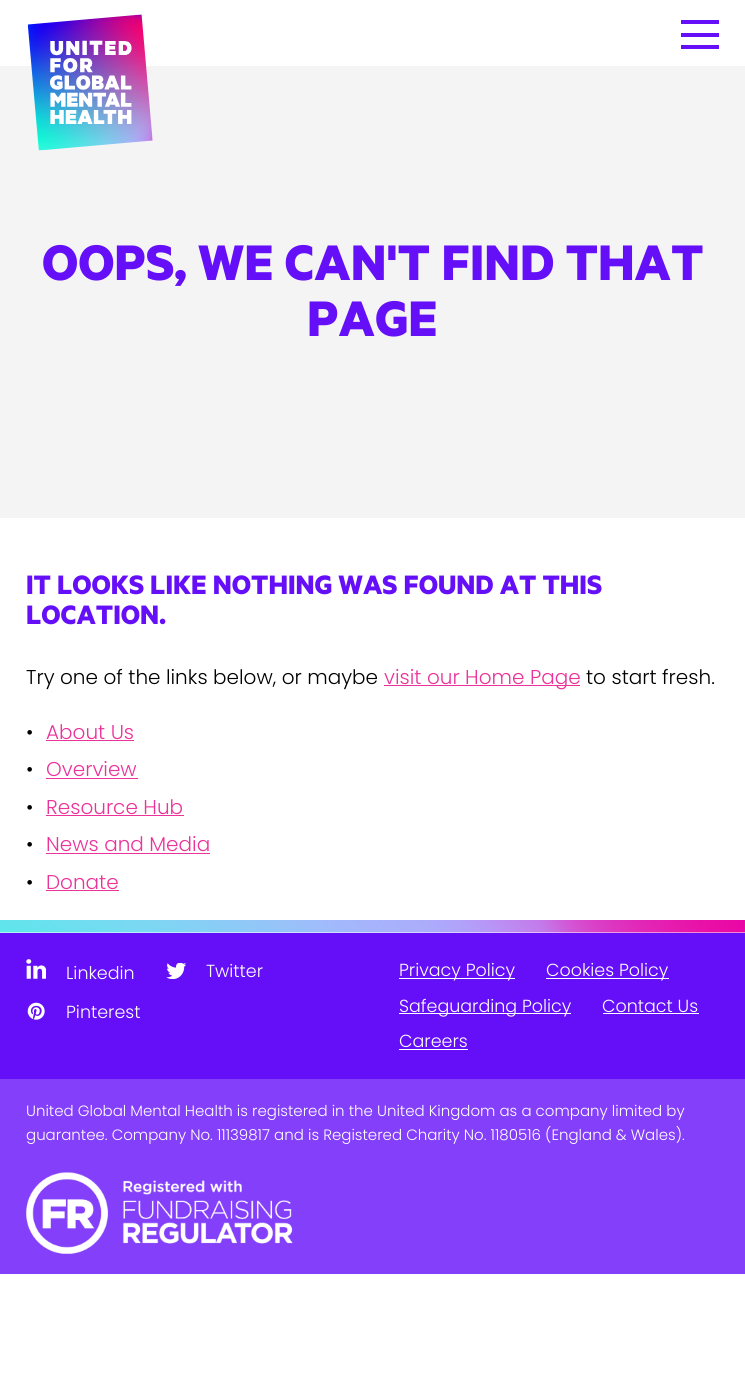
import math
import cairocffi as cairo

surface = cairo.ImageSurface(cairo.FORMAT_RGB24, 745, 1399)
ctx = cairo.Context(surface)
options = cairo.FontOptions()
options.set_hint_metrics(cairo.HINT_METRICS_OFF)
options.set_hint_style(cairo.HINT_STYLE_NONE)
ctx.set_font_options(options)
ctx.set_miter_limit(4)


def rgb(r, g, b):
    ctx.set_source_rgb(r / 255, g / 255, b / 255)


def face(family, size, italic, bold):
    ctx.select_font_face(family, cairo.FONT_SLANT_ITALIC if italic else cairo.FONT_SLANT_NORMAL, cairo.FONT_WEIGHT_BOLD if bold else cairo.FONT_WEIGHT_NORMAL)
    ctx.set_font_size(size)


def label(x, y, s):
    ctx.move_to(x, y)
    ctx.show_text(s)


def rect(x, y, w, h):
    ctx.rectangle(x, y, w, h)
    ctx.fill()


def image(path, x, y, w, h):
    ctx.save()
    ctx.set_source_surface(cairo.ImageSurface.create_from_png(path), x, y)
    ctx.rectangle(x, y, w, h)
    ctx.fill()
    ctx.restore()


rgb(255, 255, 255)
ctx.paint()
rgb(244, 244, 245)
rect(0, 66, 745, 452)
image('image0.png', 27, 14, 126, 137)
rgb(101, 15, 249)
rect(681, 33, 38, 4)
rect(681, 20, 38, 4)
rect(681, 45, 38, 4)
face('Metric', 56.25, 0, 1)
label(42, 280, 'OOPS, WE CAN\'T FIND THAT')
label(307, 336, 'PAGE')
face('Metric', 30, 0, 1)
label(26, 594, 'IT LOOKS LIKE NOTHING WAS FOUND AT THIS')
label(26, 624, 'LOCATION.')
face('Poppins Light', 20, 0, 0)
rgb(0, 0, 0)
label(26, 684, 'Try one of the links below, or maybe')
rgb(235, 51, 154)
rect(384, 685, 196, 1)
label(384, 684, 'visit our Home Page')
rgb(0, 0, 0)
label(586, 684, 'to start fresh.')
label(26, 739, '•')
rgb(235, 51, 154)
label(46, 739, 'About Us')
rect(46, 740, 88, 1)
rgb(0, 0, 0)
label(26, 776, '•')
rgb(235, 51, 154)
label(46, 776, 'Overview')
rect(46, 778, 92, 1)
rgb(0, 0, 0)
label(26, 814, '•')
rgb(235, 51, 154)
label(46, 814, 'Resource Hub')
rect(46, 815, 138, 1)
rgb(0, 0, 0)
label(26, 851, '•')
rgb(235, 51, 154)
label(46, 851, 'News and Media')
rect(46, 853, 164, 1)
rgb(0, 0, 0)
label(26, 889, '•')
rgb(235, 51, 154)
label(46, 889, 'Donate')
rect(46, 890, 73, 1)
image('image1.png', 0, 920, 745, 13)
rgb(101, 15, 249)
rect(0, 933, 745, 146)
image('image2.png', 26, 959, 20, 20)
face('Poppins Light', 17.5, 0, 0)
rgb(255, 255, 255)
label(66, 979, 'Linkedin')
image('image3.png', 166, 963, 20, 16)
label(206, 977, 'Twitter')
image('image4.png', 27, 1002, 18, 18)
label(66, 1018, 'Pinterest')
rect(399, 978, 116, 1)
label(399, 976, 'Privacy Policy')
rect(546, 978, 123, 1)
label(546, 976, 'Cookies Policy')
rect(399, 1013, 172, 1)
label(399, 1012, 'Safeguarding Policy')
label(602, 1012, 'Contact Us')
rect(603, 1013, 96, 1)
label(399, 1047, 'Careers')
rect(399, 1049, 69, 1)
rgb(132, 63, 250)
rect(0, 1079, 745, 195)
face('Poppins Light', 15, 0, 0)
rgb(255, 255, 255)
label(26, 1116, 'United Global Mental Health is registered in the United Kingdom as a company limited by')
label(26, 1140, 'guarantee. Company No. 11139817 and is Registered Charity No. 1180516 (England & Wales).')
image('image5.png', 26, 1172, 267, 82)
surface.write_to_png('render.png')
